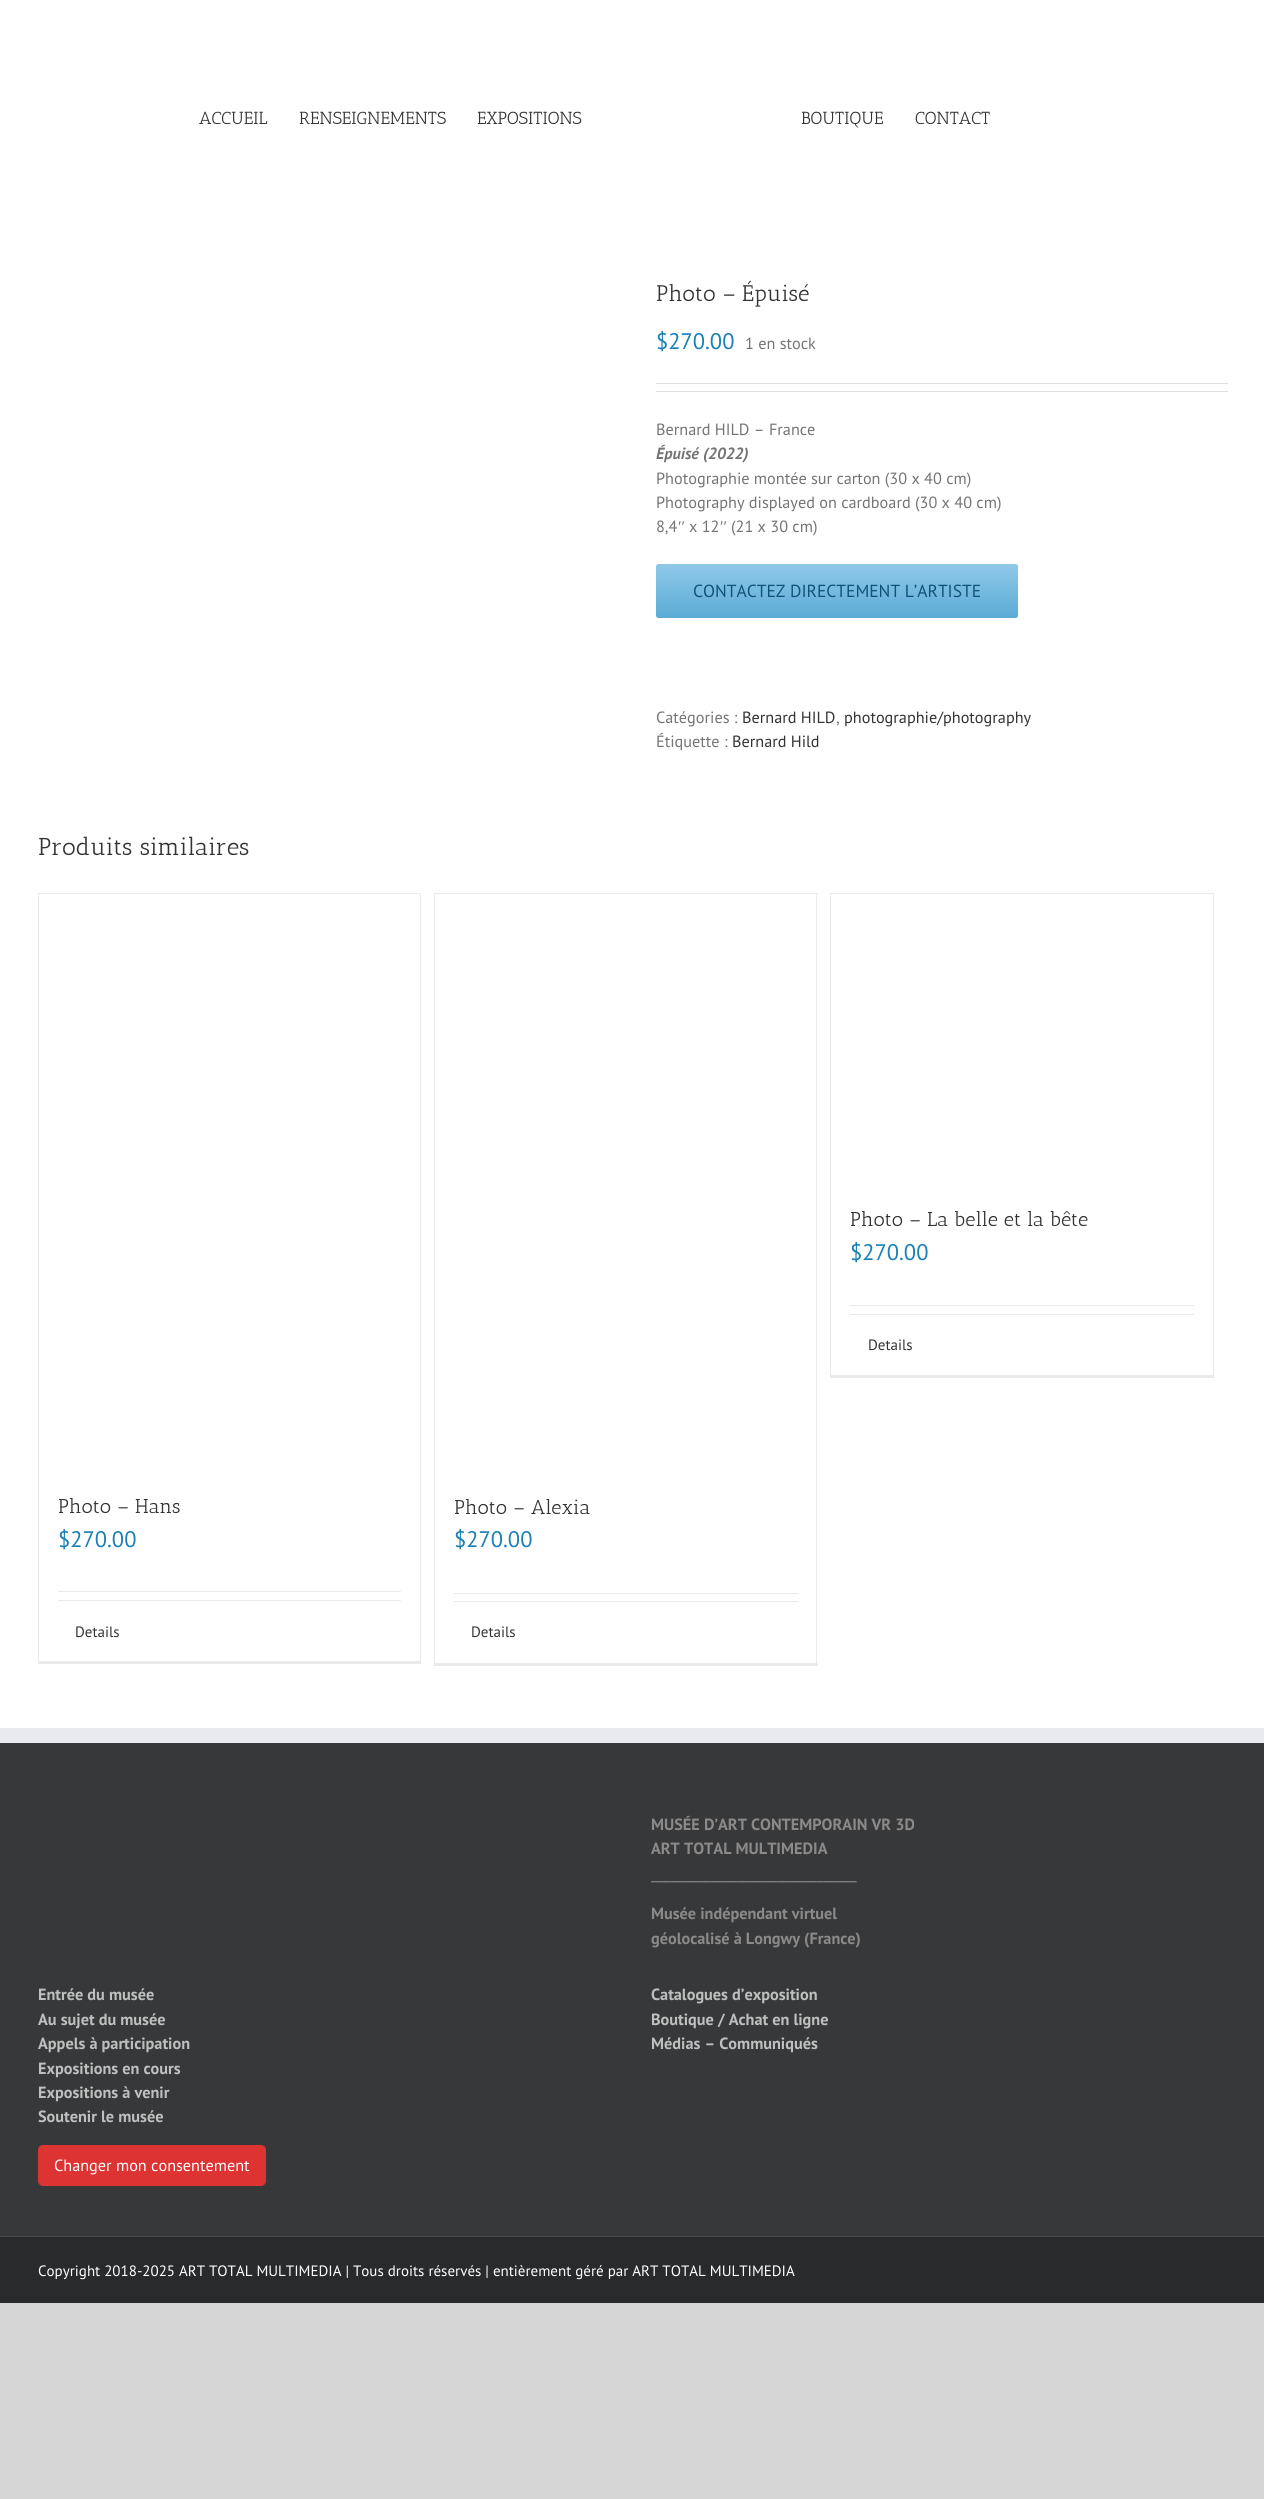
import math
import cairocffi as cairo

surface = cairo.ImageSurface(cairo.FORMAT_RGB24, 1264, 2499)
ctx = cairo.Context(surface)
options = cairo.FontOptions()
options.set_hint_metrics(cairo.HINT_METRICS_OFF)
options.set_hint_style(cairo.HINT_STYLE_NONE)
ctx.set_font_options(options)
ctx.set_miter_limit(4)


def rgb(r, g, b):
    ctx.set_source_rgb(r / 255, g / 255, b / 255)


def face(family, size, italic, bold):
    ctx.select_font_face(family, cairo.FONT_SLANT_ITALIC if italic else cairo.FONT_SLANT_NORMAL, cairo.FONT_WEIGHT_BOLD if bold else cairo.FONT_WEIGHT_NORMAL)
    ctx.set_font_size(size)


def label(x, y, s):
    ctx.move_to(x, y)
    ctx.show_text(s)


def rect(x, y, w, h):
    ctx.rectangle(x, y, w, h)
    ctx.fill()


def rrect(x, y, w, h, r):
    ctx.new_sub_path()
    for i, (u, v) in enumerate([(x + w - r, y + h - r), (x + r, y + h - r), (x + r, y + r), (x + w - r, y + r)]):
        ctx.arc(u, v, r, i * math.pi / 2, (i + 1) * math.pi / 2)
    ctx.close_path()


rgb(215, 214, 214)
ctx.paint()
rgb(255, 255, 255)
rect(0, 0, 1264, 1728)
face('Antic Slab', 17.5, 0, 0)
rgb(51, 51, 51)
label(199, 124, 'ACCUEIL')
label(299, 124, 'RENSEIGNEMENTS')
label(477, 124, 'EXPOSITIONS')
label(801, 124, 'BOUTIQUE')
label(915, 124, 'CONTACT')
face('Antic Slab', 22.5, 0, 0)
label(656, 301, 'Photo – Épuisé')
face('PT Sans', 22.5, 0, 0)
rgb(26, 128, 182)
label(656, 349, '$270.00')
face('PT Sans', 16.25, 0, 0)
rgb(116, 116, 116)
label(745, 349, '1 en stock')
rgb(224, 222, 222)
rect(656, 383, 572, 1)
rect(656, 391, 572, 1)
rgb(116, 116, 116)
label(656, 435, 'Bernard HILD – France')
face('PT Sans', 16.25, 1, 1)
label(656, 459, 'Épuisé (2022)')
face('PT Sans', 16.25, 0, 0)
label(656, 484, 'Photographie montée sur carton (30 x 40 cm)')
label(656, 508, 'Photography displayed on cardboard (30 x 40 cm)')
label(656, 532, '8,4')
face('Liberation Serif', 16.25, 0, 0)
label(678, 532, '′′')
face('PT Sans', 16.25, 0, 0)
label(689, 532, 'x 12')
face('Liberation Serif', 16.25, 0, 0)
label(720, 532, '′′')
face('PT Sans', 16.25, 0, 0)
label(731, 532, '(21 x 30 cm)')
gradient = cairo.LinearGradient(837, 618, 837, 564)
gradient.add_color_stop_rgba(0, 0.353, 0.671, 0.839, 1)
gradient.add_color_stop_rgba(1, 0.565, 0.788, 0.91, 1)
ctx.set_source(gradient)
rrect(656, 564, 362, 54, 2.5)
ctx.fill()
face('PT Sans', 17.5, 0, 0)
rgb(16, 83, 120)
label(693, 597, 'CONTACTEZ DIRECTEMENT L’ARTISTE')
face('PT Sans', 16.25, 0, 0)
rgb(116, 116, 116)
label(656, 723, 'Catégories :')
rgb(51, 51, 51)
label(742, 723, 'Bernard HILD')
rgb(116, 116, 116)
label(836, 723, ',')
rgb(51, 51, 51)
label(844, 723, 'photographie/photography')
rgb(116, 116, 116)
label(656, 747, 'Étiquette :')
rgb(51, 51, 51)
label(732, 747, 'Bernard Hild')
face('Antic Slab', 24.4, 0, 0)
label(38, 855, 'Produits similaires')
rgb(235, 234, 234)
rect(830, 893, 384, 1)
rect(1213, 893, 1, 485)
rect(830, 1375, 384, 3)
rect(830, 893, 1, 485)
face('Antic Slab', 20, 0, 0)
rgb(51, 51, 51)
label(850, 1226, 'Photo – La belle et la bête')
face('PT Sans', 22.5, 0, 0)
rgb(26, 128, 182)
label(850, 1260, '$270.00')
rgb(235, 234, 234)
rect(850, 1305, 344, 1)
rect(850, 1314, 344, 1)
face('PT Sans', 15, 0, 0)
rgb(51, 51, 51)
label(868, 1350, 'Details')
rgb(235, 234, 234)
rect(38, 893, 383, 1)
rect(420, 893, 1, 771)
rect(38, 1661, 383, 3)
rect(38, 893, 1, 771)
face('Antic Slab', 20, 0, 0)
rgb(51, 51, 51)
label(58, 1513, 'Photo – Hans')
face('PT Sans', 22.5, 0, 0)
rgb(26, 128, 182)
label(58, 1547, '$270.00')
rgb(235, 234, 234)
rect(58, 1591, 343, 1)
rect(58, 1600, 343, 1)
face('PT Sans', 15, 0, 0)
rgb(51, 51, 51)
label(75, 1637, 'Details')
rgb(235, 234, 234)
rect(434, 893, 384, 1)
rect(816, 893, 1, 772)
rect(434, 1663, 384, 3)
rect(434, 893, 1, 772)
face('Antic Slab', 20, 0, 0)
rgb(51, 51, 51)
label(454, 1514, 'Photo – Alexia')
face('PT Sans', 22.5, 0, 0)
rgb(26, 128, 182)
label(454, 1547, '$270.00')
rgb(235, 234, 234)
rect(454, 1593, 344, 1)
rect(454, 1601, 344, 1)
face('PT Sans', 15, 0, 0)
rgb(51, 51, 51)
label(471, 1637, 'Details')
rgb(54, 56, 57)
rect(0, 1743, 1264, 493)
rgb(233, 234, 238)
rect(0, 1728, 1264, 15)
face('PT Sans', 16.25, 0, 1)
rgb(140, 137, 137)
label(651, 1830, 'MUSÉE D’ART CONTEMPORAIN VR 3D')
label(651, 1854, 'ART TOTAL MULTIMEDIA')
face('PT Sans', 16.25, 0, 0)
label(651, 1879, '_______________________________')
face('PT Sans', 16.25, 0, 1)
label(651, 1919, 'Musée indépendant virtuel')
label(651, 1944, 'géolocalisé à Longwy (France)')
rgb(191, 191, 191)
label(38, 2000, 'Entrée du musée')
label(38, 2025, 'Au sujet du musée')
label(38, 2049, 'Appels à participation')
label(38, 2074, 'Expositions en cours')
label(38, 2098, 'Expositions à venir')
label(38, 2122, 'Soutenir le musée')
rgb(221, 51, 51)
rrect(38, 2145, 228, 41, 5)
ctx.fill()
face('PT Sans', 16.25, 0, 0)
rgb(255, 255, 255)
label(54, 2171, 'Changer mon consentement')
face('PT Sans', 16.25, 0, 1)
rgb(191, 191, 191)
label(651, 2000, 'Catalogues d’exposition')
label(651, 2025, 'Boutique / Achat en ligne')
label(651, 2049, 'Médias – Communiqués')
rgb(40, 42, 43)
rect(0, 2237, 1264, 66)
rgb(75, 76, 77)
rect(0, 2236, 1264, 1)
face('PT Sans', 15, 0, 0)
rgb(255, 255, 255)
label(38, 2276, 'Copyright 2018-2025 ART TOTAL MULTIMEDIA | Tous droits réservés | entièrement géré par ART TOTAL MULTIMEDIA')
surface.write_to_png('render.png')
